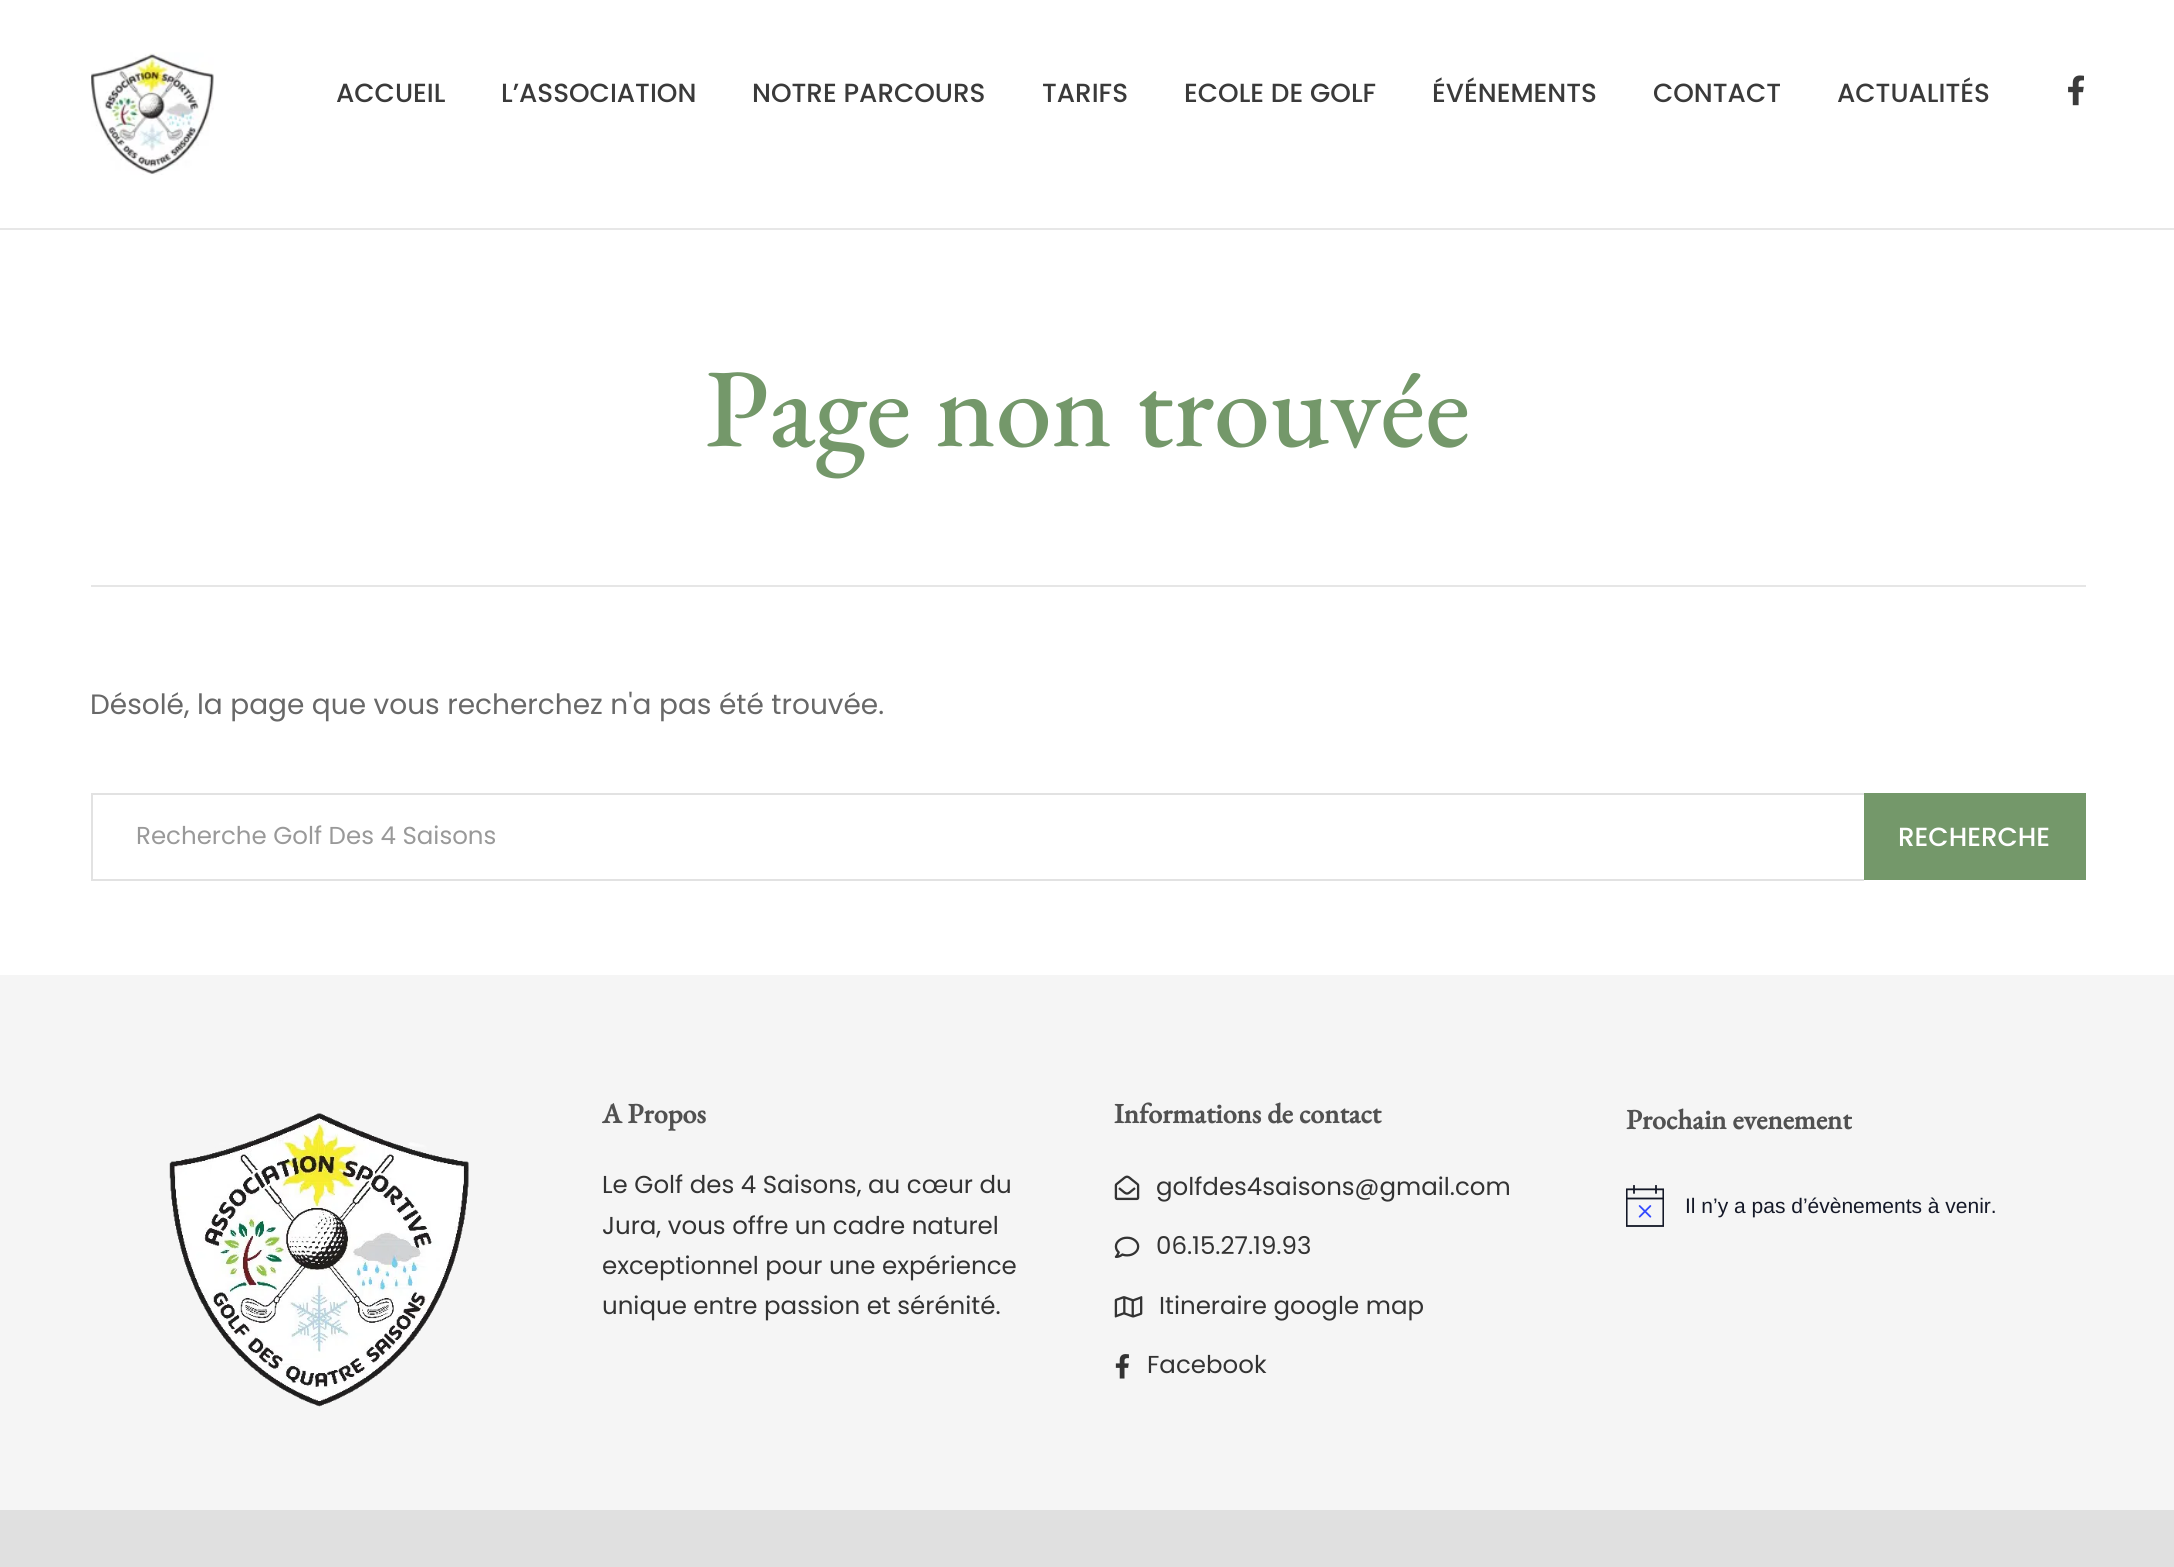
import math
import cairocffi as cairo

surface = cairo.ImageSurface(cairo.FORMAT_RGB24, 2174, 1567)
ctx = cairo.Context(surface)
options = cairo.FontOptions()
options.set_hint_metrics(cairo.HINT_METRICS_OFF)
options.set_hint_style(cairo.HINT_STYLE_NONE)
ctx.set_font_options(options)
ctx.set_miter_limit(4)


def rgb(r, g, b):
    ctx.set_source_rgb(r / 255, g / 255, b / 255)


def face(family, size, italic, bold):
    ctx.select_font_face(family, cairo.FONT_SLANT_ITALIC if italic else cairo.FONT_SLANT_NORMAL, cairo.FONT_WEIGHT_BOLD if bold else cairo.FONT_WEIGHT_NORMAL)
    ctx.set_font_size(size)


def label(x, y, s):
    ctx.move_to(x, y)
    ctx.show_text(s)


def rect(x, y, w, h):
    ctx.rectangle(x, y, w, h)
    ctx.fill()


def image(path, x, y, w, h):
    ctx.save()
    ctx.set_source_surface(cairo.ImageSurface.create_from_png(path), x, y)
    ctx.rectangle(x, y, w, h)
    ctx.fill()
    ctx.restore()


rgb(255, 255, 255)
ctx.paint()
rgb(231, 231, 231)
rect(0, 228, 2174, 2)
image('image0.png', 91, 52, 123, 123)
face('Poppins Medium', 26.25, 0, 0)
rgb(58, 58, 58)
label(336, 102, 'ACCUEIL')
label(501, 102, 'L’ASSOCIATION')
label(752, 102, 'NOTRE PARCOURS')
label(1042, 102, 'TARIFS')
label(1184, 102, 'ECOLE DE GOLF')
label(1432, 102, 'ÉVÉNEMENTS')
label(1653, 102, 'CONTACT')
label(1837, 102, 'ACTUALITÉS')
image('image1.png', 2068, 75, 16, 31)
rgb(230, 230, 230)
rect(91, 585, 1995, 2)
face('EB Garamond Medium', 112, 0, 0)
rgb(116, 152, 106)
label(705, 446, 'Page non trouvée')
face('Poppins', 28, 0, 0)
rgb(104, 104, 104)
label(90, 714, 'Désolé, la page que vous recherchez n\'a pas été trouvée.')
rgb(226, 226, 226)
rect(91, 793, 1773, 2)
rect(91, 879, 1773, 2)
rect(91, 793, 2, 87)
face('Poppins', 24.5, 0, 0)
rgb(153, 153, 153)
label(136, 844, 'Recherche Golf Des 4 Saisons')
rgb(116, 152, 106)
rect(1864, 793, 222, 87)
face('Poppins Medium', 26.25, 0, 0)
rgb(255, 255, 255)
label(1898, 846, 'RECHERCHE')
rgb(245, 245, 245)
rect(0, 975, 2174, 535)
image('image2.png', 169, 1113, 300, 294)
face('EB Garamond', 28, 0, 1)
rgb(81, 81, 81)
label(602, 1123, 'A Propos')
face('Poppins', 24.5, 0, 0)
rgb(51, 51, 51)
label(602, 1193, 'Le Golf des 4 Saisons, au cœur du')
label(602, 1234, 'Jura, vous offre un cadre naturel')
label(602, 1274, 'exceptionnel pour une expérience')
label(602, 1314, 'unique entre passion et sérénité.')
face('EB Garamond', 28, 0, 1)
rgb(81, 81, 81)
label(1114, 1123, 'Informations de contact')
image('image3.png', 1114, 1175, 26, 26)
face('Poppins', 24.5, 0, 0)
rgb(51, 51, 51)
label(1156, 1195, 'golfdes4saisons@gmail.com')
image('image4.png', 1114, 1236, 26, 22)
label(1156, 1254, '06.15.27.19.93')
image('image5.png', 1114, 1296, 29, 22)
label(1159, 1314, 'Itineraire google map')
image('image6.png', 1115, 1354, 14, 25)
label(1147, 1373, 'Facebook')
face('EB Garamond', 28, 0, 1)
rgb(81, 81, 81)
label(1626, 1129, 'Prochain evenement')
image('image7.png', 1626, 1185, 38, 42)
face('Liberation Sans', 21, 0, 0)
rgb(20, 24, 39)
label(1685, 1213, 'Il n’y a pas d’évènements à venir.')
rgb(224, 224, 224)
rect(0, 1510, 2174, 57)
surface.write_to_png('render.png')
